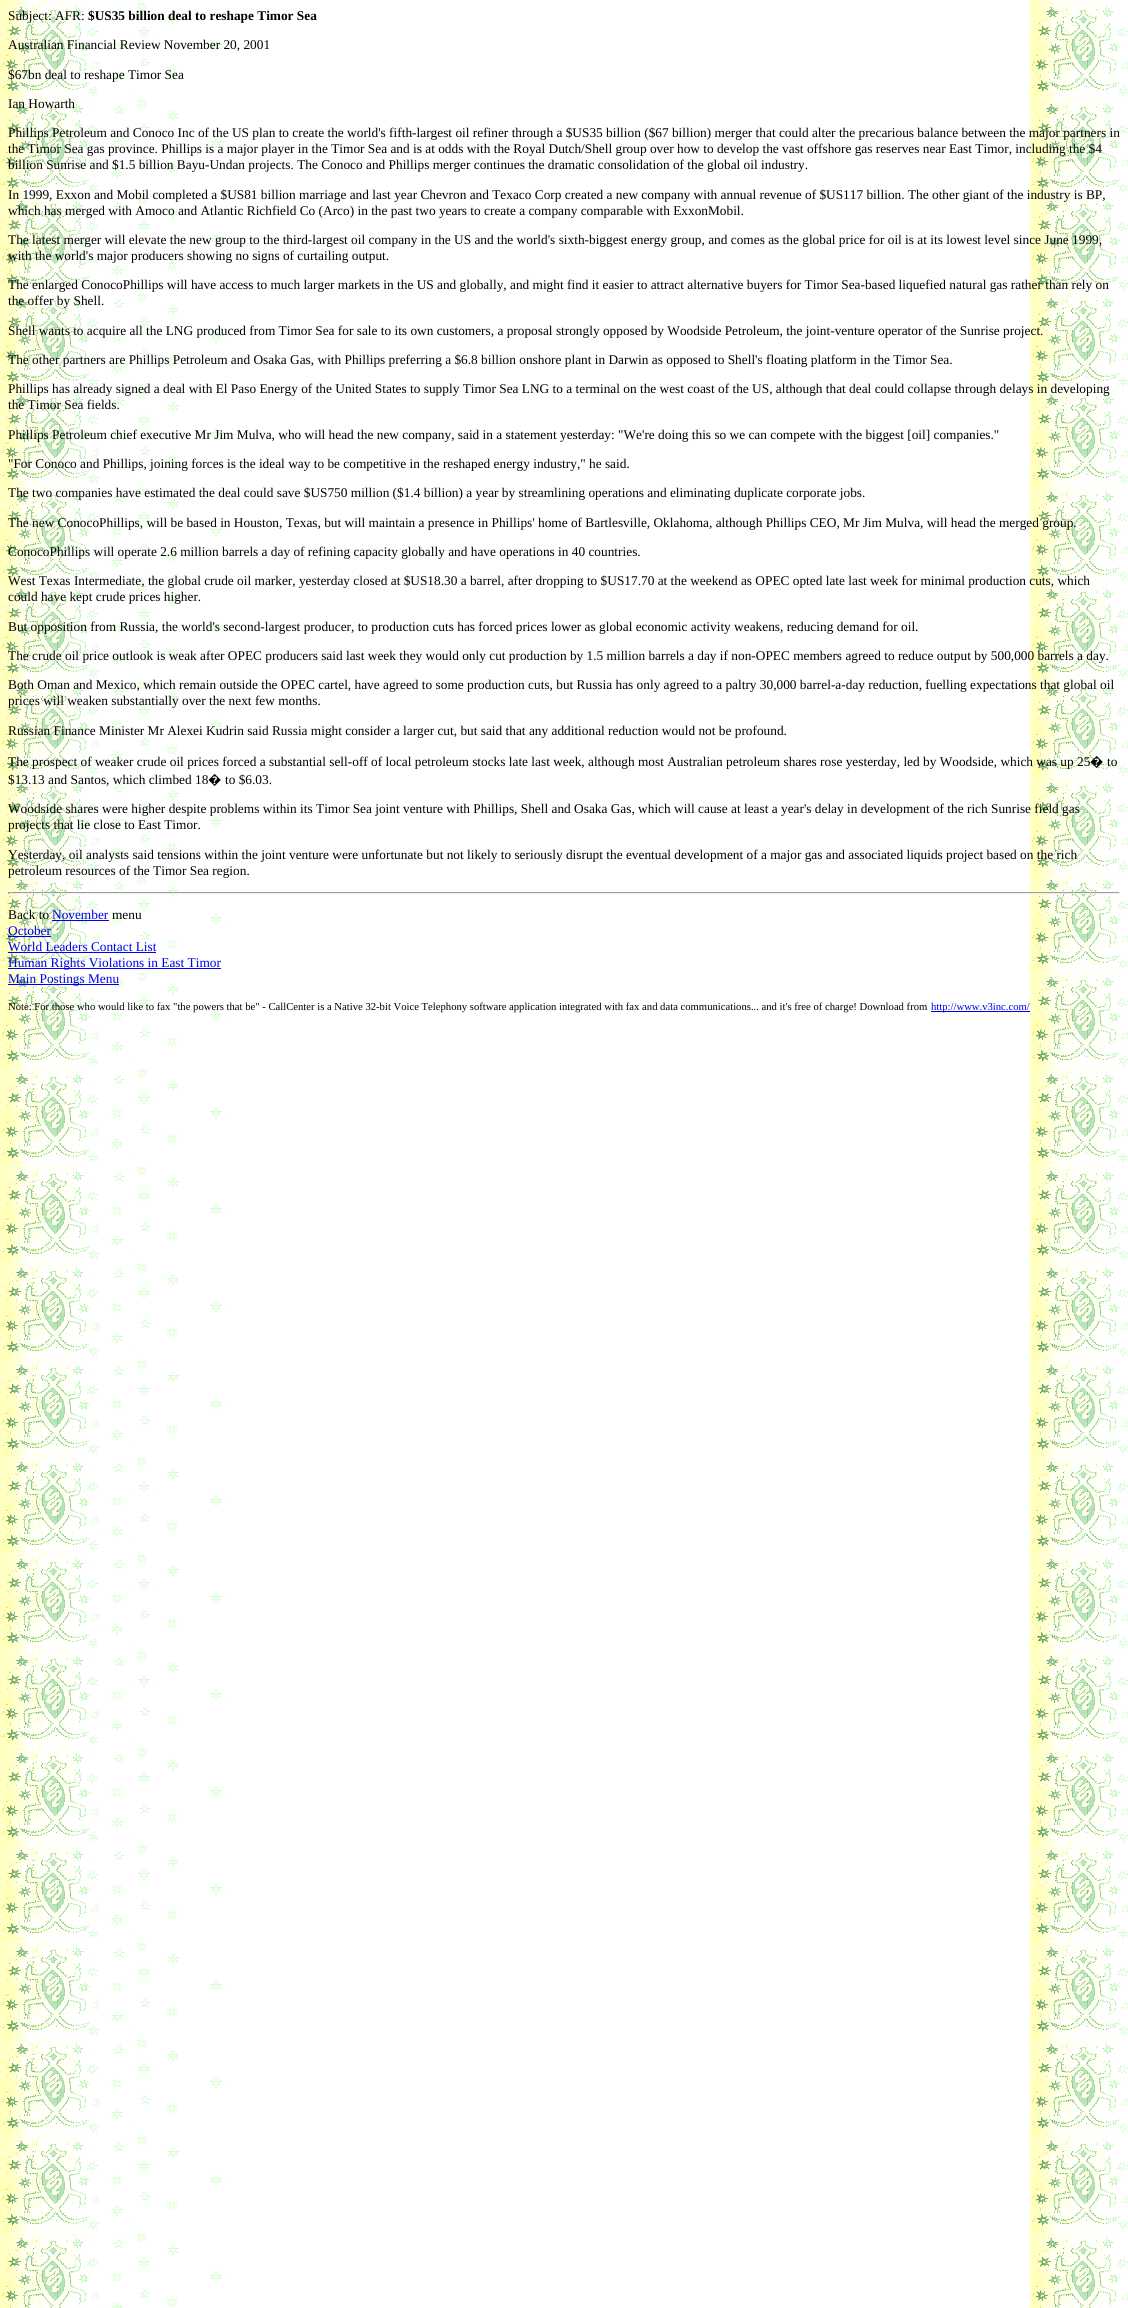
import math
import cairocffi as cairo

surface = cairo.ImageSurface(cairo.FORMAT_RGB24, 1128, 2308)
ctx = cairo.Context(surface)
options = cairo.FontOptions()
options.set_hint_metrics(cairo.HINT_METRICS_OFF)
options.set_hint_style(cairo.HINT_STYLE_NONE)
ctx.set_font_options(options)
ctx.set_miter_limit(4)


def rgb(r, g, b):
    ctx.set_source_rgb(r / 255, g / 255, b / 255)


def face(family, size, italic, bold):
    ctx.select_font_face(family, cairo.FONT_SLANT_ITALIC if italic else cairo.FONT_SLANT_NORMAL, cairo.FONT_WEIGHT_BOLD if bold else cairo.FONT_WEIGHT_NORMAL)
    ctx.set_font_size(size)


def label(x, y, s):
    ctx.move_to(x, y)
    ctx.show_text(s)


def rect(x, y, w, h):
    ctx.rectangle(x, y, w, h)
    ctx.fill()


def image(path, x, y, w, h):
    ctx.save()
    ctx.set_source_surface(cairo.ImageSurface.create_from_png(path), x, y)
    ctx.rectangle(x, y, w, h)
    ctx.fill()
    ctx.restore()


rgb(255, 255, 255)
ctx.paint()
image('image0.png', 0, 0, 1128, 2308)
face('Liberation Serif', 13.33, 0, 0)
rgb(0, 0, 0)
label(8, 20, 'Subject: AFR:')
face('Liberation Serif', 13.33, 0, 1)
label(88, 20, '$US35 billion deal to reshape Timor Sea')
face('Liberation Serif', 13.33, 0, 0)
label(8, 49, 'Australian Financial Review November 20, 2001')
label(8, 79, '$67bn deal to reshape Timor Sea')
label(8, 108, 'Ian Howarth')
label(8, 137, 'Phillips Petroleum and Conoco Inc of the US plan to create the world\'s fifth-largest oil refiner through a $US35 billion ($67 billion) merger that could alter the precarious balance between the major partners in')
label(8, 153, 'the Timor Sea gas province. Phillips is a major player in the Timor Sea and is at odds with the Royal Dutch/Shell group over how to develop the vast offshore gas reserves near East Timor, including the $4')
label(8, 169, 'billion Sunrise and $1.5 billion Bayu-Undan projects. The Conoco and Phillips merger continues the dramatic consolidation of the global oil industry.')
label(8, 199, 'In 1999, Exxon and Mobil completed a $US81 billion marriage and last year Chevron and Texaco Corp created a new company with annual revenue of $US117 billion. The other giant of the industry is BP,')
label(8, 215, 'which has merged with Amoco and Atlantic Richfield Co (Arco) in the past two years to create a company comparable with ExxonMobil.')
label(8, 244, 'The latest merger will elevate the new group to the third-largest oil company in the US and the world\'s sixth-biggest energy group, and comes as the global price for oil is at its lowest level since June 1999,')
label(8, 260, 'with the world\'s major producers showing no signs of curtailing output.')
label(8, 289, 'The enlarged ConocoPhillips will have access to much larger markets in the US and globally, and might find it easier to attract alternative buyers for Timor Sea-based liquefied natural gas rather than rely on')
label(8, 305, 'the offer by Shell.')
label(8, 335, 'Shell wants to acquire all the LNG produced from Timor Sea for sale to its own customers, a proposal strongly opposed by Woodside Petroleum, the joint-venture operator of the Sunrise project.')
label(8, 364, 'The other partners are Phillips Petroleum and Osaka Gas, with Phillips preferring a $6.8 billion onshore plant in Darwin as opposed to Shell\'s floating platform in the Timor Sea.')
label(8, 393, 'Phillips has already signed a deal with El Paso Energy of the United States to supply Timor Sea LNG to a terminal on the west coast of the US, although that deal could collapse through delays in developing')
label(8, 409, 'the Timor Sea fields.')
label(8, 439, 'Phillips Petroleum chief executive Mr Jim Mulva, who will head the new company, said in a statement yesterday: "We\'re doing this so we can compete with the biggest [oil] companies."')
label(8, 468, '"For Conoco and Phillips, joining forces is the ideal way to be competitive in the reshaped energy industry," he said.')
label(8, 497, 'The two companies have estimated the deal could save $US750 million ($1.4 billion) a year by streamlining operations and eliminating duplicate corporate jobs.')
label(8, 527, 'The new ConocoPhillips, will be based in Houston, Texas, but will maintain a presence in Phillips\' home of Bartlesville, Oklahoma, although Phillips CEO, Mr Jim Mulva, will head the merged group.')
label(8, 556, 'ConocoPhillips will operate 2.6 million barrels a day of refining capacity globally and have operations in 40 countries.')
label(8, 585, 'West Texas Intermediate, the global crude oil marker, yesterday closed at $US18.30 a barrel, after dropping to $US17.70 at the weekend as OPEC opted late last week for minimal production cuts, which')
label(8, 601, 'could have kept crude prices higher.')
label(8, 631, 'But opposition from Russia, the world\'s second-largest producer, to production cuts has forced prices lower as global economic activity weakens, reducing demand for oil.')
label(8, 660, 'The crude oil price outlook is weak after OPEC producers said last week they would only cut production by 1.5 million barrels a day if non-OPEC members agreed to reduce output by 500,000 barrels a day.')
label(8, 689, 'Both Oman and Mexico, which remain outside the OPEC cartel, have agreed to some production cuts, but Russia has only agreed to a paltry 30,000 barrel-a-day reduction, fuelling expectations that global oil')
label(8, 705, 'prices will weaken substantially over the next few months.')
label(8, 735, 'Russian Finance Minister Mr Alexei Kudrin said Russia might consider a larger cut, but said that any additional reduction would not be profound.')
label(8, 766, 'The prospect of weaker crude oil prices forced a substantial sell-off of local petroleum stocks late last week, although most Australian petroleum shares rose yesterday, led by Woodside, which was up 25')
face('Noto Sans', 13.33, 0, 0)
label(1090, 766, '�')
face('Liberation Serif', 13.33, 0, 0)
label(1107, 766, 'to')
label(8, 784, '$13.13 and Santos, which climbed 18')
face('Noto Sans', 13.33, 0, 0)
label(208, 784, '�')
face('Liberation Serif', 13.33, 0, 0)
label(225, 784, 'to $6.03.')
label(8, 813, 'Woodside shares were higher despite problems within its Timor Sea joint venture with Phillips, Shell and Osaka Gas, which will cause at least a year\'s delay in development of the rich Sunrise field gas')
label(8, 829, 'projects that lie close to East Timor.')
label(8, 859, 'Yesterday, oil analysts said tensions within the joint venture were unfortunate but not likely to seriously disrupt the eventual development of a major gas and associated liquids project based on the rich')
label(8, 875, 'petroleum resources of the Timor Sea region.')
rgb(159, 159, 159)
rect(8, 892, 1112, 1)
rgb(238, 238, 238)
rect(1119, 892, 1, 2)
rect(8, 893, 1112, 1)
rgb(159, 159, 159)
rect(8, 892, 1, 2)
rgb(0, 0, 0)
label(8, 919, 'Back to')
rgb(0, 0, 238)
label(52, 919, 'November')
rect(52, 920, 57, 1)
rgb(0, 0, 0)
label(112, 919, 'menu')
rgb(0, 0, 238)
label(8, 935, 'October')
rect(8, 936, 43, 1)
label(8, 951, 'World Leaders Contact List')
rect(8, 952, 148, 1)
rect(8, 968, 213, 1)
label(8, 967, 'Human Rights Violations in East Timor')
rect(8, 984, 111, 1)
label(8, 983, 'Main Postings Menu')
face('Liberation Serif', 10.65, 0, 0)
rgb(0, 0, 0)
label(8, 1010, 'Note: For those who would like to fax "the powers that be" - CallCenter is a Native 32-bit Voice Telephony software')
label(509, 1010, 'application integrated with fax and data communications... and it\'s free of charge! Download from')
rgb(0, 0, 238)
rect(931, 1011, 99, 1)
label(931, 1010, 'http://www.v3inc.com/')
surface.write_to_png('render.png')
